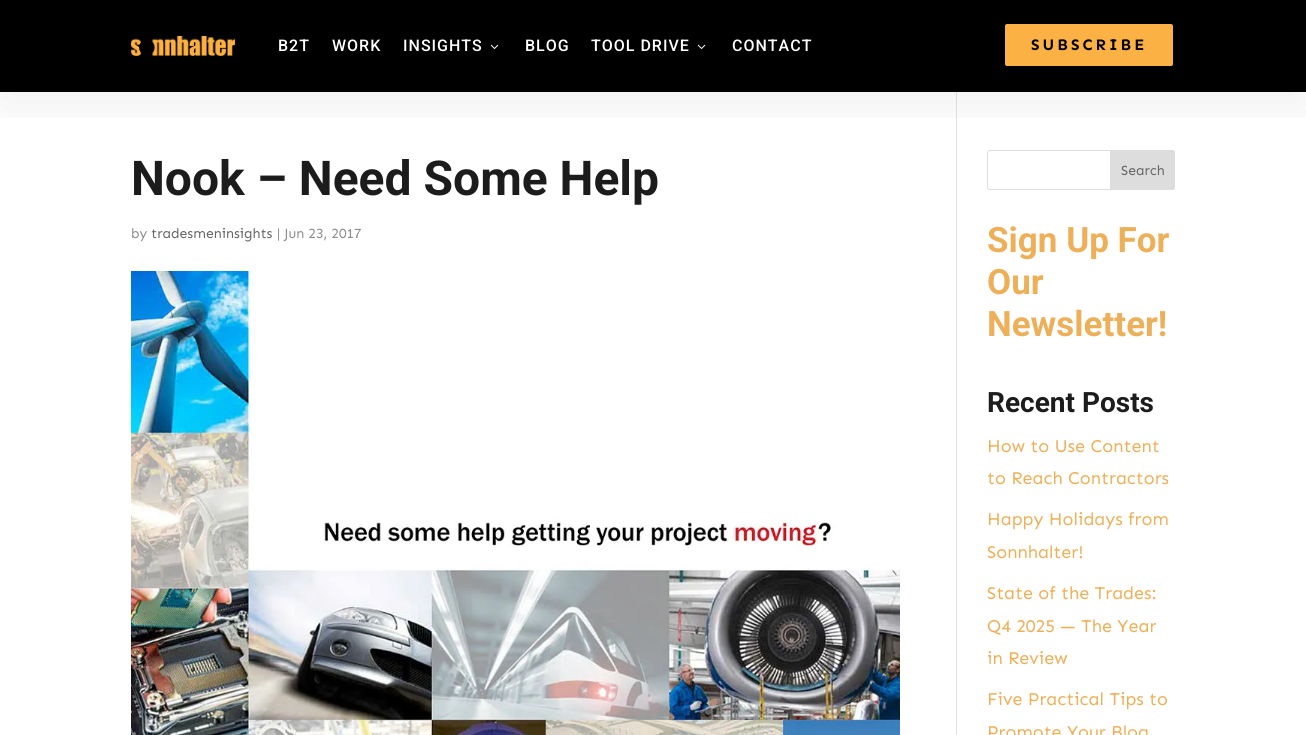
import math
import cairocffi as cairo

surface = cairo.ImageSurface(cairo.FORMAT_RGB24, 1306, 735)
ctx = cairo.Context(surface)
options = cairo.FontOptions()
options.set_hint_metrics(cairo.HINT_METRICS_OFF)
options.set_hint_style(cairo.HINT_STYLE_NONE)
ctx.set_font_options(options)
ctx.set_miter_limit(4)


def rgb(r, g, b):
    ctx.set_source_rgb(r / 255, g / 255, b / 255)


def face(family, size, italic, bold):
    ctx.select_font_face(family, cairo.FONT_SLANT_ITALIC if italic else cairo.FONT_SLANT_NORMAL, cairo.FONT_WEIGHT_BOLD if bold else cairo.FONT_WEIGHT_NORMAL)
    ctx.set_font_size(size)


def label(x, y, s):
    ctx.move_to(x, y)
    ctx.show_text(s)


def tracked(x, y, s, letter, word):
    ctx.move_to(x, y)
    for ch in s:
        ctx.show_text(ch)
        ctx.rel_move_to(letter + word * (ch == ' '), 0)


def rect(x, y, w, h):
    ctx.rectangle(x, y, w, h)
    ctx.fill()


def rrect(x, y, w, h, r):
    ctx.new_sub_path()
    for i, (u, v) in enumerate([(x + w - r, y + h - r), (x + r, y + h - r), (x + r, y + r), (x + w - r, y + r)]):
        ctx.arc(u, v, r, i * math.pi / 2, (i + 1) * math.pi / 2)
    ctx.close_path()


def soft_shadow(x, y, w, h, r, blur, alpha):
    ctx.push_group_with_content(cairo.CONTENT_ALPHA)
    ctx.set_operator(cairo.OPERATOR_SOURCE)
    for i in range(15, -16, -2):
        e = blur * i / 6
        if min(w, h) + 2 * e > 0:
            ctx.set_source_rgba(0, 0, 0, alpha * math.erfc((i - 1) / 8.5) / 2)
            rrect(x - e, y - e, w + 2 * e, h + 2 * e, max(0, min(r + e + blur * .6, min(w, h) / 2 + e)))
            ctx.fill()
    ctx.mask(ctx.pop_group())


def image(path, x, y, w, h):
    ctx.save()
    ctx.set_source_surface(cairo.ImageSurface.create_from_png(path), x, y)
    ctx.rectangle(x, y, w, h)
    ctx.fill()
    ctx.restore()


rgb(0, 0, 0)
ctx.paint()
rgb(255, 255, 255)
rect(0, 92, 1306, 643)
rgb(226, 226, 226)
rect(956, 92, 1, 643)
rrect(987.5, 150.5, 187, 39, 2.5)
rgb(221, 221, 221)
ctx.set_line_width(1)
ctx.stroke()
ctx.new_path()
ctx.move_to(1110.5, 150.5)
ctx.line_to(1172, 150.5)
ctx.curve_to(1173.5, 150.5, 1174.5, 151.5, 1174.5, 153)
ctx.line_to(1174.5, 187)
ctx.curve_to(1174.5, 188.5, 1173.5, 189.5, 1172, 189.5)
ctx.line_to(1110.5, 189.5)
ctx.close_path()
ctx.fill_preserve()
ctx.stroke()
ctx.save()
ctx.rectangle(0, 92, 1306, 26)
ctx.clip()
rgb(0, 0, 0)
soft_shadow(0, 16, 1306, 92, 0, 24, 0.06)
ctx.restore()
image('image0.png', 131, 36, 104, 20)
face('Roboto Medium', 16, 0, 0)
rgb(255, 255, 255)
tracked(278, 51, 'B2T', 1, 0)
tracked(332, 51, 'WORK', 1, 0)
tracked(403, 51, 'INSIGHTS', 1, 0)
image('image1.png', 490, 44, 9, 5)
tracked(525, 51, 'BLOG', 1, 0)
tracked(591, 51, 'TOOL DRIVE', 1, 0)
image('image1.png', 697, 44, 9, 5)
tracked(732, 51, 'CONTACT', 1, 0)
rgb(251, 177, 68)
rrect(1004, 23, 170, 44, 3)
ctx.fill_preserve()
rgb(0, 0, 0)
ctx.set_line_width(2)
ctx.stroke()
face('Sen', 16, 0, 1)
tracked(1031, 50, 'SUBSCRIBE', 3, 0)
face('Roboto', 48, 0, 1)
rgb(28, 28, 28)
label(131, 195, 'Nook – Need Some Help')
face('Sen', 14, 0, 0)
rgb(140, 140, 140)
label(131, 238, 'by')
rgb(102, 102, 102)
label(151, 238, 'tradesmeninsights')
rgb(140, 140, 140)
label(277, 238, '| Jun 23, 2017')
image('image2.png', 131, 271, 769, 464)
rgb(102, 102, 102)
label(1121, 175, 'Search')
face('Roboto', 35, 0, 1)
rgb(237, 176, 89)
label(987, 252, 'Sign Up For')
label(987, 294, 'Our')
label(987, 336, 'Newsletter!')
face('Roboto', 28, 0, 1)
rgb(28, 28, 28)
label(987, 412, 'Recent Posts')
face('Sen', 18, 0, 0)
rgb(237, 176, 89)
label(987, 452, 'How to Use Content')
label(987, 484, 'to Reach Contractors')
label(987, 525, 'Happy Holidays from')
label(987, 558, 'Sonnhalter!')
label(987, 599, 'State of the Trades:')
label(987, 632, 'Q4 2025 — The Year')
label(987, 664, 'in Review')
label(987, 705, 'Five Practical Tips to')
label(987, 738, 'Promote Your Blog')
surface.write_to_png('render.png')
